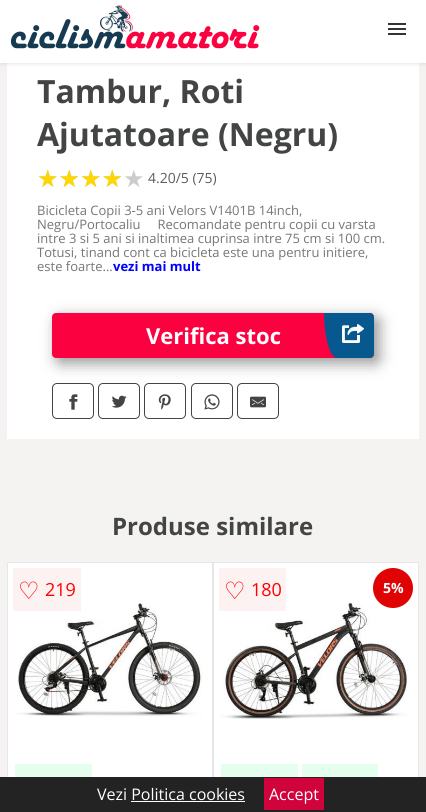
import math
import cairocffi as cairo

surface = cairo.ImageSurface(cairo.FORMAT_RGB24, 426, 812)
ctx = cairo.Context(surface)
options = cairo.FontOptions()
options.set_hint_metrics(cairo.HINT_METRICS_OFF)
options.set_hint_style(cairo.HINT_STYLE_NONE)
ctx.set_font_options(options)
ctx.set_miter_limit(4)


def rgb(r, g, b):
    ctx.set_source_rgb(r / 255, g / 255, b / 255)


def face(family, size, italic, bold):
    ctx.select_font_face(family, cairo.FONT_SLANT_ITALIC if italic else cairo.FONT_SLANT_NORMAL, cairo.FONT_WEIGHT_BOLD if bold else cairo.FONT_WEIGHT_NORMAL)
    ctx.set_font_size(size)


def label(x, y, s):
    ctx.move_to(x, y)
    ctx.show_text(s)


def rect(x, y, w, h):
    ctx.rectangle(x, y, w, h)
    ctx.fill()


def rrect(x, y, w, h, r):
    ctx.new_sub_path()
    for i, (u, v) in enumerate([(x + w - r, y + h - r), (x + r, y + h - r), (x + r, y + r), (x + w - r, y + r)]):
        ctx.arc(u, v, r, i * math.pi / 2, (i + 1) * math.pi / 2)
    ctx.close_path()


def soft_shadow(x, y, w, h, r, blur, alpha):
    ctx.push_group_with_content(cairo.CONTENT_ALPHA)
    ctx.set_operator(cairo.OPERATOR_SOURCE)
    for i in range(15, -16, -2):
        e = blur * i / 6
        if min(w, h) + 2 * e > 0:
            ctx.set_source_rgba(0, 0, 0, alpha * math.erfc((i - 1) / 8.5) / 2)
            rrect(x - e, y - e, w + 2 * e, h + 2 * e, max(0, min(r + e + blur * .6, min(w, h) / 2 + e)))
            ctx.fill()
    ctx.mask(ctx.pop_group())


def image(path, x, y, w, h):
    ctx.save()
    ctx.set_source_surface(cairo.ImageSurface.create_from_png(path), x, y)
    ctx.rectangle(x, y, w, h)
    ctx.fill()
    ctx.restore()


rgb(245, 242, 242)
ctx.paint()
rgb(255, 255, 255)
rect(7, 63, 412, 376)
rgb(0, 0, 0)
soft_shadow(1, 1, 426, 63, 0, 2, 0.1)
rgb(255, 255, 255)
rect(0, 0, 426, 63)
image('image0.png', 10, 5, 250, 44)
rgb(51, 51, 51)
rect(388, 28, 18, 2)
rect(388, 23, 18, 2)
rect(388, 33, 18, 2)
face('Open Sans', 32, 0, 1)
rgb(67, 68, 68)
label(37, 103, 'Tambur, Roti')
label(37, 146, 'Ajutatoare (Negru)')
face('DejaVu Sans', 24, 0, 0)
rgb(204, 204, 204)
label(37, 187, '★★★★★')
rgb(255, 215, 0)
label(37, 187, '★★★★')
face('Open Sans', 14, 0, 0)
rgb(93, 93, 93)
label(148, 183, '4.20/5 (75)')
face('Open Sans', 13, 0, 0)
rgb(118, 118, 118)
label(37, 215, 'Bicicleta Copii 3-5 ani Velors V1401B 14inch,')
label(37, 229, 'Negru/Portocaliu     Recomandate pentru copii cu varsta')
label(37, 243, 'intre 3 si 5 ani si inaltimea cuprinsa intre 75 cm si 100 cm.')
label(37, 257, 'Totusi, tinand cont ca bicicleta este una pentru initiere,')
label(37, 271, 'este foarte...')
face('Open Sans', 13, 0, 1)
rgb(0, 0, 255)
label(113, 271, 'vezi mai mult')
rgb(39, 39, 39)
soft_shadow(57, 318, 322, 45, 4, 7.5, 0.5)
rgb(252, 1, 64)
rrect(52, 313, 322, 45, 4)
ctx.fill()
face('Open Sans', 22, 0, 1)
rgb(255, 255, 255)
label(146, 344, 'Verifica stoc')
rgb(6, 88, 143)
ctx.new_path()
ctx.move_to(324, 313)
ctx.line_to(370, 313)
ctx.curve_to(372, 313, 374, 315, 374, 317)
ctx.line_to(374, 354)
ctx.curve_to(374, 356, 372, 358, 370, 358)
ctx.line_to(337, 358)
ctx.curve_to(330, 358, 324, 338, 324, 313)
ctx.close_path()
ctx.fill()
image('image1.png', 342, 324, 22, 19)
rrect(52.5, 383.5, 41, 35, 4.5)
rgb(67, 68, 68)
ctx.set_line_width(1)
ctx.stroke()
image('image2.png', 69, 394, 9, 16)
rrect(98.5, 383.5, 41, 35, 4.5)
ctx.stroke()
image('image3.png', 111, 395, 16, 13)
rrect(144.5, 383.5, 41, 35, 4.5)
ctx.stroke()
image('image4.png', 158, 394, 13, 16)
rrect(191.5, 383.5, 41, 35, 4.5)
ctx.stroke()
image('image5.png', 204, 394, 16, 16)
rrect(237.5, 383.5, 41, 35, 4.5)
ctx.stroke()
image('image6.png', 250, 396, 16, 12)
face('Open Sans', 24, 0, 1)
label(112, 535, 'Produse similare')
rgb(255, 255, 255)
rect(8, 563, 204, 214)
ctx.rectangle(7.5, 562.5, 205, 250)
rgb(232, 231, 231)
ctx.stroke()
image('image7.png', 17, 602, 186, 115)
rgb(253, 242, 242)
rect(13, 568, 68, 43)
face('DejaVu Sans', 24, 0, 0)
rgb(255, 0, 0)
label(18, 599, '♡')
face('Open Sans', 18, 0, 0)
label(45, 596, '219')
rgb(228, 255, 238)
rect(15, 764, 77, 13)
rgb(255, 255, 255)
rect(214, 563, 204, 214)
ctx.rectangle(213.5, 562.5, 205, 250)
rgb(232, 231, 231)
ctx.stroke()
image('image8.png', 219, 602, 190, 117)
rgb(253, 242, 242)
rect(219, 568, 67, 43)
face('DejaVu Sans', 24, 0, 0)
rgb(255, 0, 0)
label(224, 599, '♡')
face('Open Sans', 18, 0, 0)
label(251, 596, '180')
rgb(224, 3, 3)
ctx.new_path()
ctx.arc(393, 588, 20, 0, 2 * math.pi)
ctx.fill()
face('Open Sans', 14, 0, 1)
rgb(255, 255, 255)
label(383, 593, '5%')
rgb(228, 255, 238)
rect(221, 764, 77, 13)
rect(302, 764, 76, 13)
rgb(35, 35, 35)
rect(0, 777, 426, 35)
face('Open Sans', 16, 0, 0)
rgb(255, 255, 255)
label(97, 800, 'Vezi Politica cookies')
rect(131, 801, 114, 1)
rgb(208, 3, 60)
rect(264, 778, 60, 32)
rgb(255, 255, 255)
label(269, 800, 'Accept')
surface.write_to_png('render.png')
